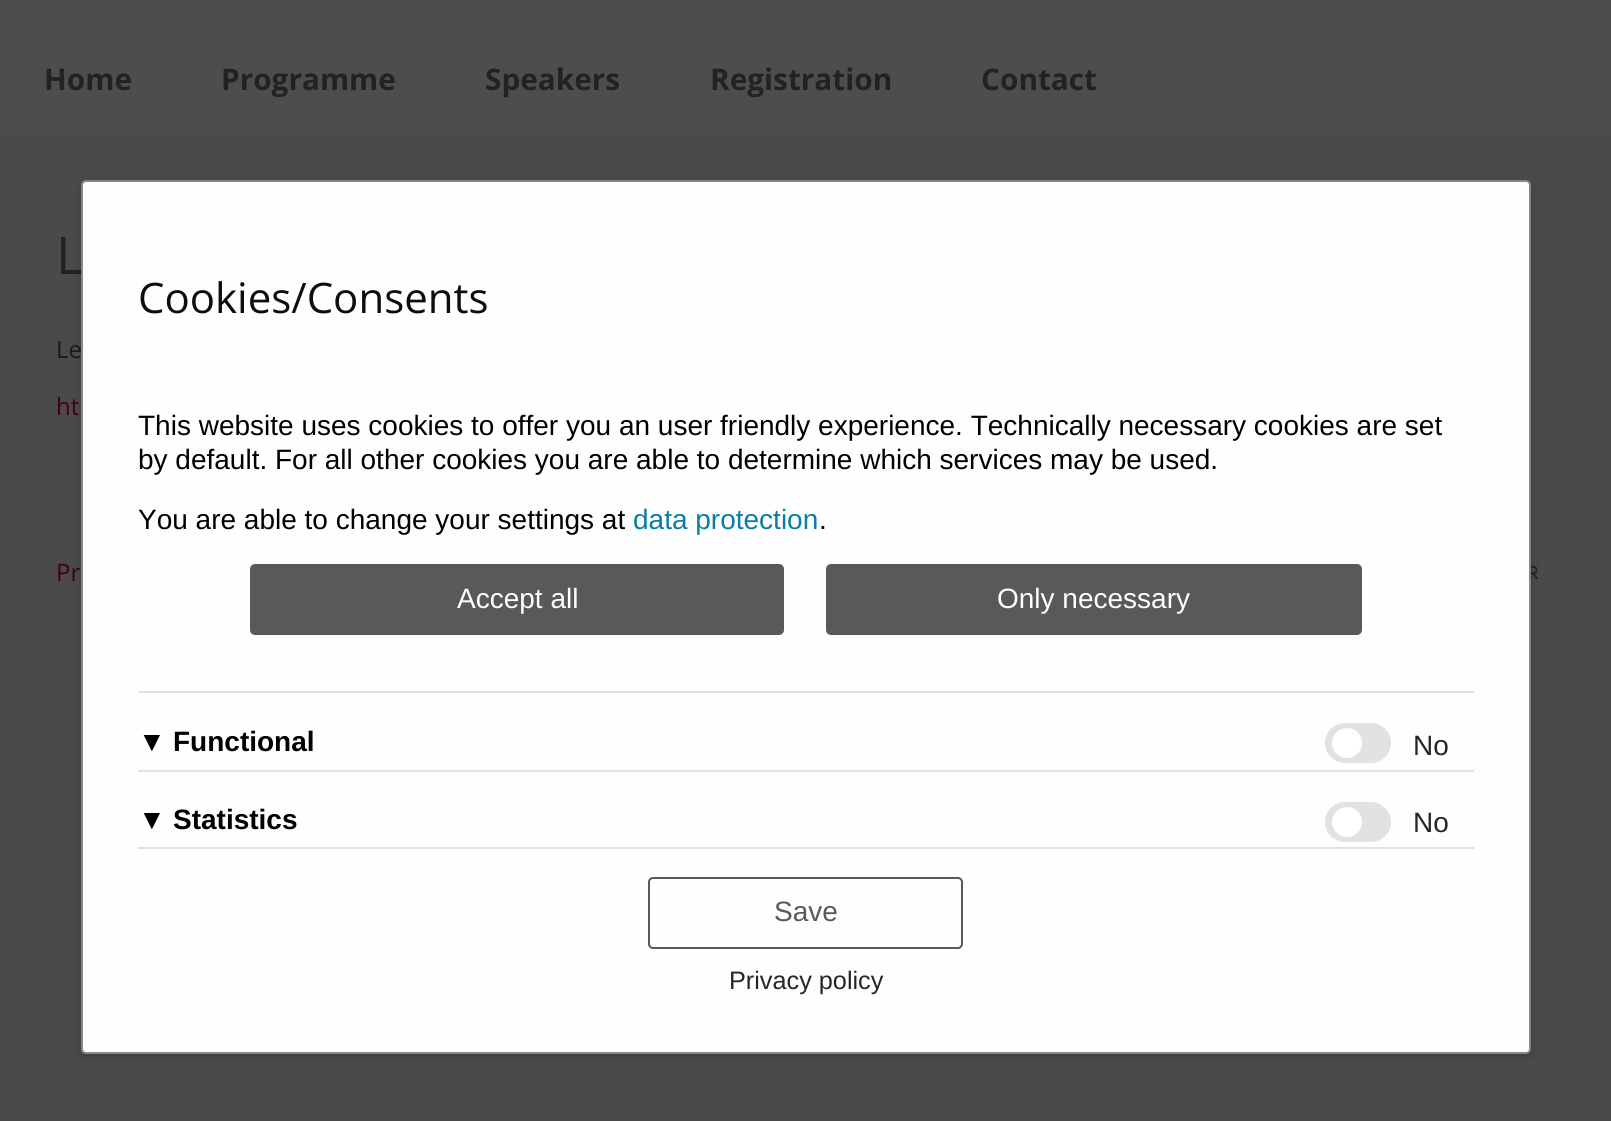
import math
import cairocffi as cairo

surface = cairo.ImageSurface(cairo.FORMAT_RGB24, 1611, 1121)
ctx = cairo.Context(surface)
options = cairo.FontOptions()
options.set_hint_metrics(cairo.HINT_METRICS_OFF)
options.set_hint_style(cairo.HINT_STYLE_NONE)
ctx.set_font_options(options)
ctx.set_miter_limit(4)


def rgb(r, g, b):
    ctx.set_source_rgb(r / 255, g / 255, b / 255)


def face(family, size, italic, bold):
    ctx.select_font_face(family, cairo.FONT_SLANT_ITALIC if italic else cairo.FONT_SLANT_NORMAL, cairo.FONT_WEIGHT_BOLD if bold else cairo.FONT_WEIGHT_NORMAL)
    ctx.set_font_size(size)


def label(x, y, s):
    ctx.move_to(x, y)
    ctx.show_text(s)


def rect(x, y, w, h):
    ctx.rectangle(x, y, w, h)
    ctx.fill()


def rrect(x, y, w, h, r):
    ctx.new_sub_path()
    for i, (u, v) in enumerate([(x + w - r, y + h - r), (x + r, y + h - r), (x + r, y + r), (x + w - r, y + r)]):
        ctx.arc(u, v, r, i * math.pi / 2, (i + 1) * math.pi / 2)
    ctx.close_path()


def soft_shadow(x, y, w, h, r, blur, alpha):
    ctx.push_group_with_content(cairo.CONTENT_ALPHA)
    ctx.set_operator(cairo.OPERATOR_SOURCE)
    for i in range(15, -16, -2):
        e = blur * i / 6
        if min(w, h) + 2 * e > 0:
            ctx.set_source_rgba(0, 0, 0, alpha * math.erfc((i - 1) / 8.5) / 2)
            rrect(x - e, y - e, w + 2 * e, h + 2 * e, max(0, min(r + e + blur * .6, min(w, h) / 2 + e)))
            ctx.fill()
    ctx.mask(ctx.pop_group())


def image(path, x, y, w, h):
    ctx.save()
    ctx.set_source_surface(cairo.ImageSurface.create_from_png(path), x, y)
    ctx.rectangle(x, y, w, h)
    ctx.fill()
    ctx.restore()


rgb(74, 74, 76)
ctx.paint()
rgb(77, 77, 77)
rect(0, 0, 1611, 137)
face('Open Sans', 29.75, 0, 1)
rgb(32, 34, 35)
label(44, 90, 'Home')
label(221, 90, 'Programme')
label(485, 90, 'Speakers')
label(710, 90, 'Registration')
label(981, 90, 'Contact')
face('Open Sans', 52, 0, 0)
label(56, 274, 'L')
face('Open Sans', 24, 0, 0)
rgb(26, 26, 27)
label(56, 358, 'Le')
rgb(66, 0, 15)
label(56, 415, 'ht')
label(56, 581, 'Pr')
image('image0.png', 1531, 565, 8, 14)
rgb(0, 0, 0)
soft_shadow(81, 184, 1450, 873, 5, 4.5, 0.2)
rgb(254, 254, 254)
rrect(82, 181, 1448, 872, 4)
ctx.fill_preserve()
rgb(136, 136, 136)
ctx.stroke()
face('Open Sans', 42, 0, 0)
rgb(13, 13, 13)
label(138, 313, 'Cookies/Consents')
face('Liberation Sans', 28, 0, 0)
rgb(0, 0, 0)
label(138, 435, 'This website uses cookies to offer you an user friendly experience. Technically necessary cookies are set')
label(138, 469, 'by default. For all other cookies you are able to determine which services may be used.')
label(138, 529, 'You are able to change your settings at')
rgb(9, 126, 165)
label(633, 529, 'data protection')
rgb(0, 0, 0)
label(819, 529, '.')
rgb(89, 89, 89)
rrect(251, 565, 532, 69, 4)
ctx.fill_preserve()
ctx.stroke()
rgb(255, 255, 255)
label(457, 608, 'Accept all')
rgb(89, 89, 89)
rrect(827, 565, 534, 69, 4)
ctx.fill_preserve()
ctx.stroke()
rgb(255, 255, 255)
label(997, 608, 'Only necessary')
rgb(226, 226, 226)
rect(138, 691, 1336, 2)
rgb(0, 0, 0)
label(138, 751, '▼')
face('Liberation Sans', 28, 0, 1)
label(173, 751, 'Functional')
rgb(226, 226, 226)
rrect(1325, 723, 66, 40, 20)
ctx.fill()
rgb(255, 255, 255)
ctx.arc(1347, 743, 15, 0, 2 * math.pi)
ctx.fill()
face('Liberation Sans', 28, 0, 0)
rgb(38, 38, 38)
label(1413, 755, 'No')
rgb(226, 226, 226)
rect(138, 770, 1336, 2)
rgb(0, 0, 0)
label(138, 829, '▼')
face('Liberation Sans', 28, 0, 1)
label(173, 829, 'Statistics')
rgb(226, 226, 226)
rrect(1325, 802, 66, 40, 20)
ctx.fill()
rgb(255, 255, 255)
ctx.arc(1347, 822, 15, 0, 2 * math.pi)
ctx.fill()
face('Liberation Sans', 28, 0, 0)
rgb(38, 38, 38)
label(1413, 832, 'No')
rgb(226, 226, 226)
rect(138, 847, 1336, 2)
rrect(649, 878, 313, 70, 4)
rgb(89, 89, 89)
ctx.stroke()
label(774, 921, 'Save')
face('Liberation Sans', 25.25, 0, 0)
rgb(38, 38, 38)
label(729, 989, 'Privacy policy')
surface.write_to_png('render.png')
